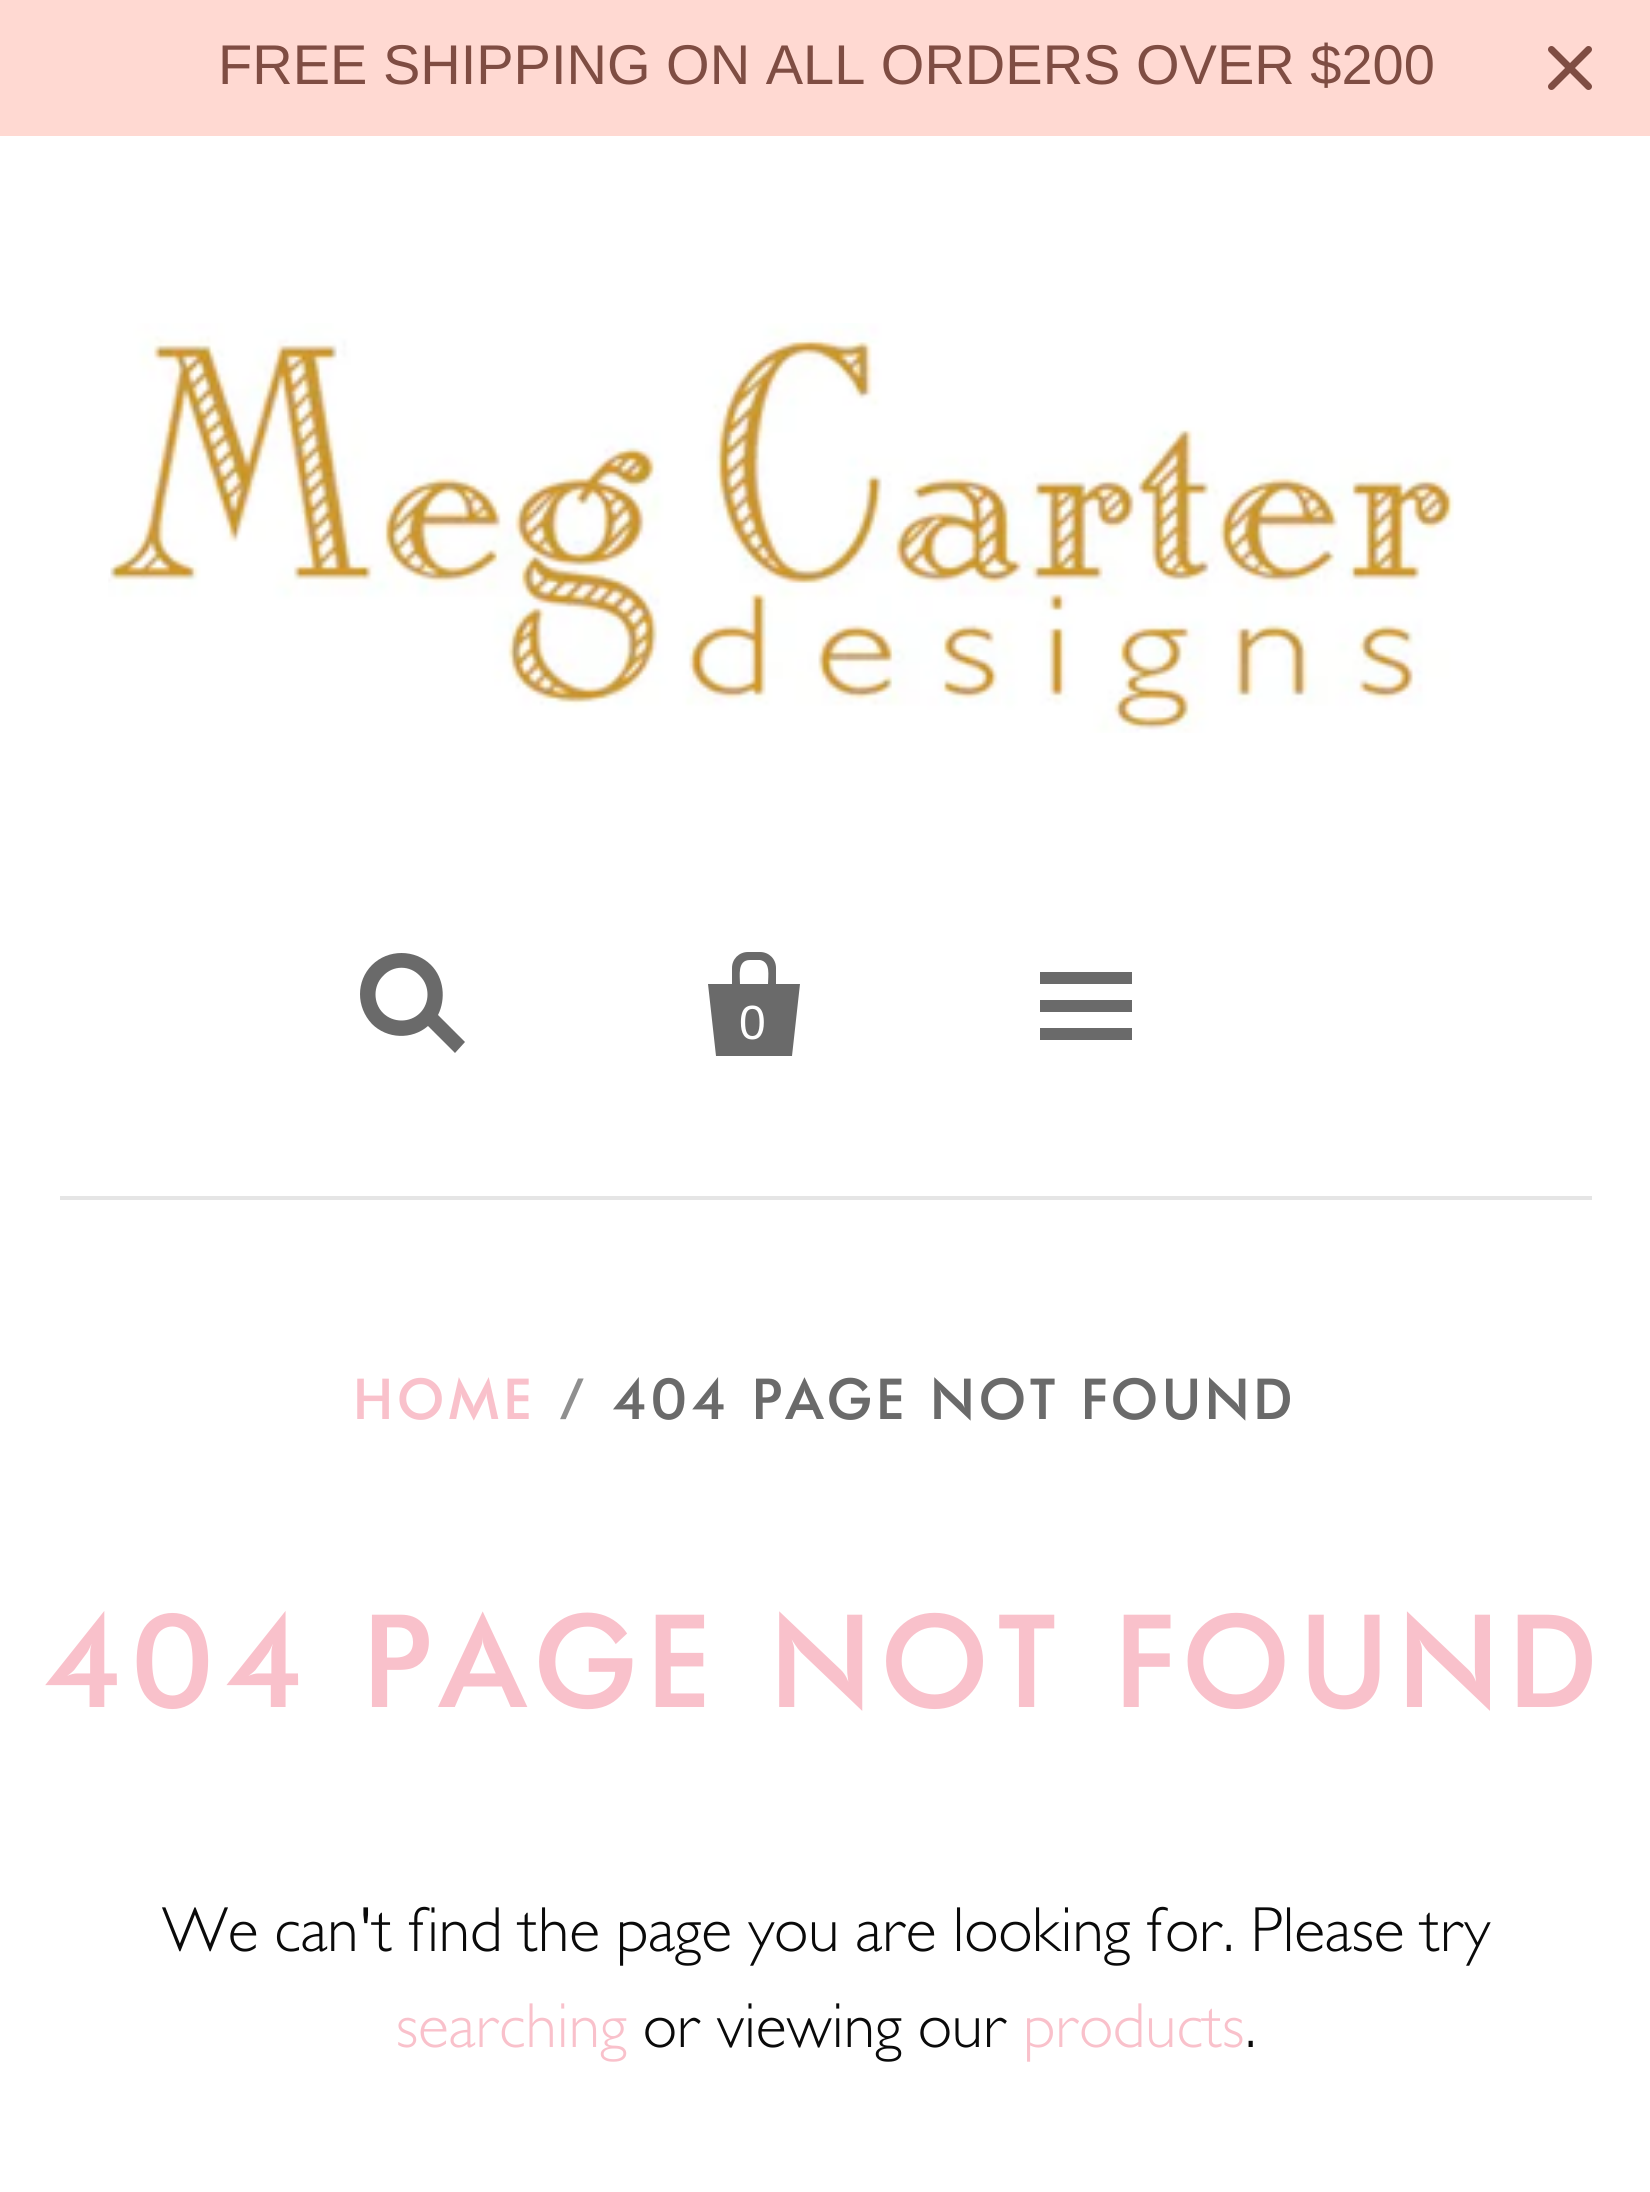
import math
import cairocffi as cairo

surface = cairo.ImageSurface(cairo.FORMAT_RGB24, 1650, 2192)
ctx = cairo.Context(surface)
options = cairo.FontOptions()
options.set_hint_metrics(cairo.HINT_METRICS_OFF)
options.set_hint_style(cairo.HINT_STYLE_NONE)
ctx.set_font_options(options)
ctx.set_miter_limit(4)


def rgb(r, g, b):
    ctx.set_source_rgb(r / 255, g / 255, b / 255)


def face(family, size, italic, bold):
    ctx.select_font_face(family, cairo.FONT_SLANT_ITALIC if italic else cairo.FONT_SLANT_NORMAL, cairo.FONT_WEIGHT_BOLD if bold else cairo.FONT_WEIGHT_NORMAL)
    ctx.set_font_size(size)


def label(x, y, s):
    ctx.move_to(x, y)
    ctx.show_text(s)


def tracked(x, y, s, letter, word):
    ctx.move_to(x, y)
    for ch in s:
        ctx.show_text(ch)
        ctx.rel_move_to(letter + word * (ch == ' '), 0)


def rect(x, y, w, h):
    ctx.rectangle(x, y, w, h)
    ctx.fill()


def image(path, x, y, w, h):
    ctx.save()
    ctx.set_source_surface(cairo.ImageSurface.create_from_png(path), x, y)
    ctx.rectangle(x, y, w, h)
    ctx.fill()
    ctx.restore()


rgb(255, 255, 255)
ctx.paint()
rgb(255, 217, 210)
rect(0, 0, 1650, 136)
face('Liberation Sans', 56, 0, 0)
rgb(127, 77, 67)
label(218, 84, 'FREE SHIPPING ON ALL ORDERS OVER $200')
image('image0.png', 1548, 46, 44, 44)
rgb(229, 229, 229)
rect(60, 1196, 1532, 4)
image('image1.png', 108, 323, 1346, 410)
rgb(106, 106, 106)
ctx.new_path()
ctx.move_to(438, 1015)
ctx.curve_to(446, 999, 444, 978, 431, 965)
ctx.curve_to(415, 949, 388, 949, 372, 965)
ctx.curve_to(356, 981, 356, 1007, 372, 1024)
ctx.curve_to(387, 1039, 412, 1040, 428, 1026)
ctx.line_to(455, 1053)
ctx.line_to(465, 1042)
ctx.close_path()
ctx.move_to(420, 1013)
ctx.curve_to(410, 1023, 393, 1023, 383, 1013)
ctx.curve_to(373, 1003, 373, 986, 383, 976)
ctx.curve_to(393, 965, 410, 965, 420, 976)
ctx.curve_to(430, 986, 430, 1003, 420, 1013)
ctx.close_path()
ctx.fill()
ctx.new_path()
ctx.move_to(776, 984)
ctx.line_to(800, 984)
ctx.line_to(792, 1056)
ctx.line_to(716, 1056)
ctx.line_to(708, 984)
ctx.line_to(732, 984)
ctx.line_to(732, 968)
ctx.curve_to(732, 959, 739, 952, 748, 952)
ctx.line_to(760, 952)
ctx.curve_to(769, 952, 776, 959, 776, 968)
ctx.close_path()
ctx.move_to(750, 960)
ctx.curve_to(737, 960, 740, 976, 740, 984)
ctx.line_to(768, 984)
ctx.curve_to(768, 976, 771, 962, 760, 960)
ctx.close_path()
ctx.fill()
face('Liberation Sans', 48, 0, 0)
rgb(255, 255, 255)
label(739, 1039, '0')
rgb(106, 106, 106)
rect(1040, 1000, 92, 12)
rect(1040, 972, 92, 12)
rect(1040, 1028, 92, 12)
face('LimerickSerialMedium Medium', 56, 0, 0)
rgb(249, 193, 203)
tracked(354, 1419, 'HOME', 5.6, 0)
rgb(143, 143, 143)
tracked(559, 1419, '/', 5.6, 0)
rgb(106, 106, 106)
tracked(612, 1419, '404 PAGE NOT FOUND', 5.6, 0)
face('LimerickSerialMedium Medium', 128, 0, 0)
rgb(249, 193, 203)
tracked(43, 1707, '404 PAGE NOT FOUND', 12.75, 0)
face('Gill Sans Light', 64, 0, 0)
rgb(10, 10, 10)
label(162, 1951, 'We can\'t find the page you are looking for. Please try')
rgb(249, 193, 203)
label(396, 2047, 'searching')
rgb(10, 10, 10)
label(643, 2047, 'or viewing our')
rgb(249, 193, 203)
label(1023, 2047, 'products')
rgb(10, 10, 10)
label(1245, 2047, '.')
surface.write_to_png('render.png')
